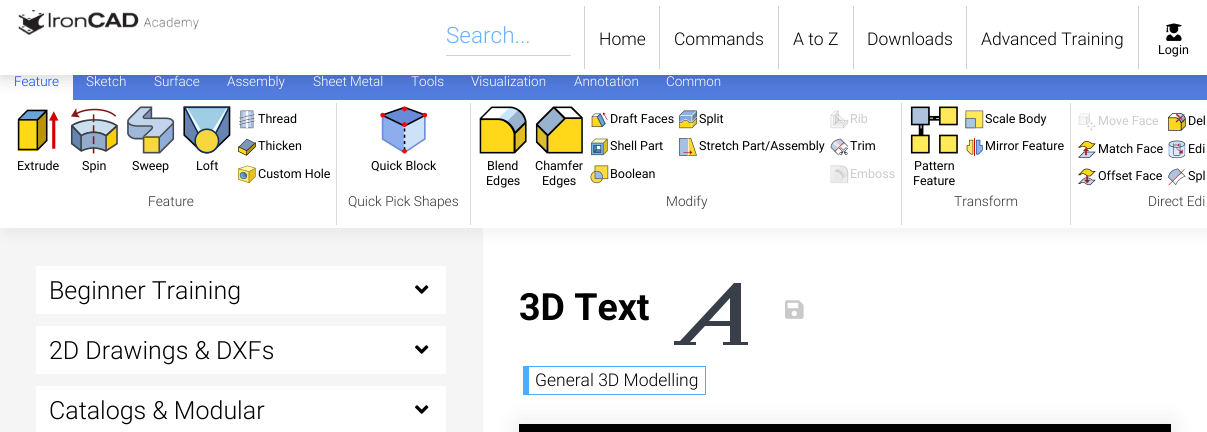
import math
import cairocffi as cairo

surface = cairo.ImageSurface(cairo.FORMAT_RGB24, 1207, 432)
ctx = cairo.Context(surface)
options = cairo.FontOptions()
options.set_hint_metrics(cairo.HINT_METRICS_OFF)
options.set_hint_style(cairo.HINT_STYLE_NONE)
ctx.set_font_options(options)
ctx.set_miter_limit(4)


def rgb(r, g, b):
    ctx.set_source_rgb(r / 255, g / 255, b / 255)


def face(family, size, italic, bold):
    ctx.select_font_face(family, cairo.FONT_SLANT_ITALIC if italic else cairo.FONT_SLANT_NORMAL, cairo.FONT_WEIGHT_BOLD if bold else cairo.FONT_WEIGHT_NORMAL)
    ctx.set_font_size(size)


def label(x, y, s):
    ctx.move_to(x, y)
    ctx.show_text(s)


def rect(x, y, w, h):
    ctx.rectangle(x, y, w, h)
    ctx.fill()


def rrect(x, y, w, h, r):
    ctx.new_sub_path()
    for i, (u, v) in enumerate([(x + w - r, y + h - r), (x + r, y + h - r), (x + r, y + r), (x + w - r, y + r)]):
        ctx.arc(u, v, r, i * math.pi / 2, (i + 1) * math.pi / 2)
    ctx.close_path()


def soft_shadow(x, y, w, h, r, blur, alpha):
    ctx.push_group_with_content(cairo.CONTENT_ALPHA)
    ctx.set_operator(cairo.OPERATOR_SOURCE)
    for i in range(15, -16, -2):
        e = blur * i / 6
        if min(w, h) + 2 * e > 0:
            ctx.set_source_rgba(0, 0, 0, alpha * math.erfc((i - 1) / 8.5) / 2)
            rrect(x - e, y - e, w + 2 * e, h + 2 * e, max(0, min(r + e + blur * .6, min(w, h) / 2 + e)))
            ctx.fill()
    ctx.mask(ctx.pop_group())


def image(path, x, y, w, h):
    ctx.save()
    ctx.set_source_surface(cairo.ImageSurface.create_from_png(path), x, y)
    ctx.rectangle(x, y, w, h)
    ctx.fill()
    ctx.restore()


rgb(255, 255, 255)
ctx.paint()
rgb(245, 245, 245)
rect(0, 228, 483, 204)
rgb(0, 0, 0)
soft_shadow(5, 68, 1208, 165, 0, 9, 0.06)
rgb(82, 124, 223)
rect(73, 75, 1134, 25)
rgb(255, 255, 255)
rect(0, 75, 73, 25)
rect(0, 100, 1207, 128)
rgb(219, 219, 219)
rect(336, 103, 1, 122)
rect(470, 103, 1, 122)
rect(901, 103, 1, 122)
rect(1070, 103, 1, 122)
rgb(0, 0, 0)
soft_shadow(1, 1, 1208, 75, 0, 9.5, 0.2)
rgb(255, 255, 255)
rect(0, 0, 1207, 75)
image('image0.png', 18, 9, 181, 27)
rgb(209, 209, 209)
rect(446, 55, 125, 1)
face('Roboto Light', 22.5, 0, 0)
rgb(108, 177, 255)
label(446, 43, 'Search...')
rgb(209, 209, 209)
rect(584, 6, 1, 63)
face('Roboto Light', 17.5, 0, 0)
rgb(0, 0, 0)
label(599, 45, 'Home')
rgb(209, 209, 209)
rect(659, 6, 1, 63)
rgb(0, 0, 0)
label(674, 45, 'Commands')
rgb(209, 209, 209)
rect(778, 6, 1, 63)
rgb(0, 0, 0)
label(793, 45, 'A to Z')
rgb(209, 209, 209)
rect(853, 6, 1, 63)
rgb(0, 0, 0)
label(867, 45, 'Downloads')
rgb(209, 209, 209)
rect(966, 6, 1, 63)
rgb(0, 0, 0)
label(981, 45, 'Advanced Training')
rgb(209, 209, 209)
rect(1138, 6, 1, 63)
image('image1.png', 1166, 23, 16, 18)
face('Roboto', 12.5, 0, 0)
rgb(0, 0, 0)
label(1158, 54, 'Login')
face('Roboto Light', 13.5, 0, 0)
rgb(14, 69, 248)
label(14, 86, 'Feature')
rgb(255, 255, 255)
label(86, 86, 'Sketch')
label(154, 86, 'Surface')
label(227, 86, 'Assembly')
label(313, 86, 'Sheet Metal')
label(411, 86, 'Tools')
label(471, 86, 'Visualization')
label(574, 86, 'Annotation')
label(666, 86, 'Common')
image('image2.png', 17, 109, 42, 42)
face('Roboto', 12.5, 0, 0)
rgb(0, 0, 0)
label(17, 170, 'Extrude')
image('image3.png', 70, 108, 48, 46)
label(82, 170, 'Spin')
image('image4.png', 127, 106, 48, 48)
label(132, 170, 'Sweep')
image('image5.png', 183, 106, 48, 48)
label(196, 170, 'Loft')
image('image6.png', 239, 110, 16, 19)
label(258, 123, 'Thread')
image('image7.png', 238, 138, 18, 18)
label(258, 150, 'Thicken')
image('image8.png', 238, 165, 18, 19)
label(258, 178, 'Custom Hole')
face('Roboto Light', 13.75, 0, 0)
rgb(51, 51, 51)
label(148, 206, 'Feature')
image('image9.png', 380, 106, 48, 48)
face('Roboto', 12.5, 0, 0)
rgb(0, 0, 0)
label(371, 170, 'Quick Block')
face('Roboto Light', 13.75, 0, 0)
rgb(51, 51, 51)
label(348, 206, 'Quick Pick Shapes')
image('image10.png', 479, 106, 48, 48)
face('Roboto', 12.5, 0, 0)
rgb(0, 0, 0)
label(487, 170, 'Blend')
label(486, 185, 'Edges')
image('image11.png', 535, 106, 48, 48)
label(535, 170, 'Chamfer')
label(542, 185, 'Edges')
image('image12.png', 591, 112, 17, 15)
label(610, 123, 'Draft Faces')
image('image13.png', 591, 138, 17, 18)
label(610, 150, 'Shell Part')
image('image14.png', 590, 165, 19, 19)
label(610, 178, 'Boolean')
image('image15.png', 679, 110, 18, 19)
label(699, 123, 'Split')
image('image16.png', 679, 138, 18, 18)
label(699, 150, 'Stretch Part/Assembly')
image('image17.png', 830, 110, 19, 19)
rgb(204, 204, 204)
label(850, 123, 'Rib')
image('image18.png', 830, 138, 19, 18)
rgb(0, 0, 0)
label(850, 150, 'Trim')
image('image19.png', 830, 165, 19, 19)
rgb(204, 204, 204)
label(850, 178, 'Emboss')
face('Roboto Light', 13.75, 0, 0)
rgb(51, 51, 51)
label(666, 206, 'Modify')
image('image20.png', 965, 110, 19, 19)
face('Roboto', 12.5, 0, 0)
rgb(0, 0, 0)
label(985, 123, 'Scale Body')
image('image21.png', 966, 138, 17, 18)
label(985, 150, 'Mirror Feature')
image('image22.png', 910, 106, 48, 48)
label(914, 170, 'Pattern')
label(913, 185, 'Feature')
face('Roboto Light', 13.75, 0, 0)
rgb(51, 51, 51)
label(954, 206, 'Transform')
image('image23.png', 1078, 113, 18, 18)
face('Roboto', 12.5, 0, 0)
rgb(204, 204, 204)
label(1098, 125, 'Move Face')
image('image24.png', 1078, 141, 18, 17)
rgb(0, 0, 0)
label(1098, 153, 'Match Face')
image('image25.png', 1078, 168, 18, 18)
label(1098, 180, 'Offset Face')
image('image26.png', 1168, 113, 18, 18)
label(1188, 125, 'Del')
image('image27.png', 1168, 140, 18, 19)
label(1188, 153, 'Edi')
image('image28.png', 1168, 168, 18, 18)
label(1188, 180, 'Spl')
face('Roboto Light', 13.75, 0, 0)
rgb(51, 51, 51)
label(1148, 206, 'Direct Edi')
rgb(255, 255, 255)
rect(36, 266, 410, 48)
face('Roboto Light', 25, 0, 0)
rgb(0, 0, 0)
label(49, 299, 'Beginner Training')
image('image29.png', 415, 285, 14, 9)
rgb(255, 255, 255)
rect(36, 326, 410, 48)
rgb(0, 0, 0)
label(49, 359, '2D Drawings & DXFs')
image('image29.png', 415, 345, 14, 9)
rgb(255, 255, 255)
rect(36, 386, 410, 46)
rgb(0, 0, 0)
label(49, 419, 'Catalogs & Modular')
image('image29.png', 415, 405, 14, 9)
face('Roboto', 37.5, 0, 1)
label(519, 320, '3D Text')
rgb(57, 63, 72)
ctx.new_path()
ctx.move_to(734, 283)
ctx.line_to(741, 283)
ctx.line_to(741, 342)
ctx.line_to(748, 342)
ctx.line_to(748, 345)
ctx.line_to(723, 345)
ctx.line_to(723, 342)
ctx.line_to(730, 342)
ctx.line_to(730, 326)
ctx.line_to(705, 326)
ctx.line_to(690, 342)
ctx.line_to(696, 342)
ctx.line_to(696, 345)
ctx.line_to(674, 345)
ctx.line_to(674, 341)
ctx.line_to(680, 341)
ctx.close_path()
ctx.move_to(730, 298)
ctx.line_to(709, 321)
ctx.line_to(730, 321)
ctx.close_path()
ctx.fill()
image('image30.png', 785, 300, 19, 19)
rgb(76, 172, 255)
rect(523, 366, 183, 1)
rect(705, 366, 1, 29)
rect(523, 394, 183, 1)
rect(523, 366, 6, 29)
face('Roboto Light', 17.5, 0, 0)
rgb(0, 0, 0)
label(535, 386, 'General 3D Modelling')
rgb(0, 0, 0)
soft_shadow(519, 424, 652, 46, 0, 12.5, 0.1)
rgb(0, 0, 0)
rect(519, 424, 652, 8)
surface.write_to_png('render.png')
